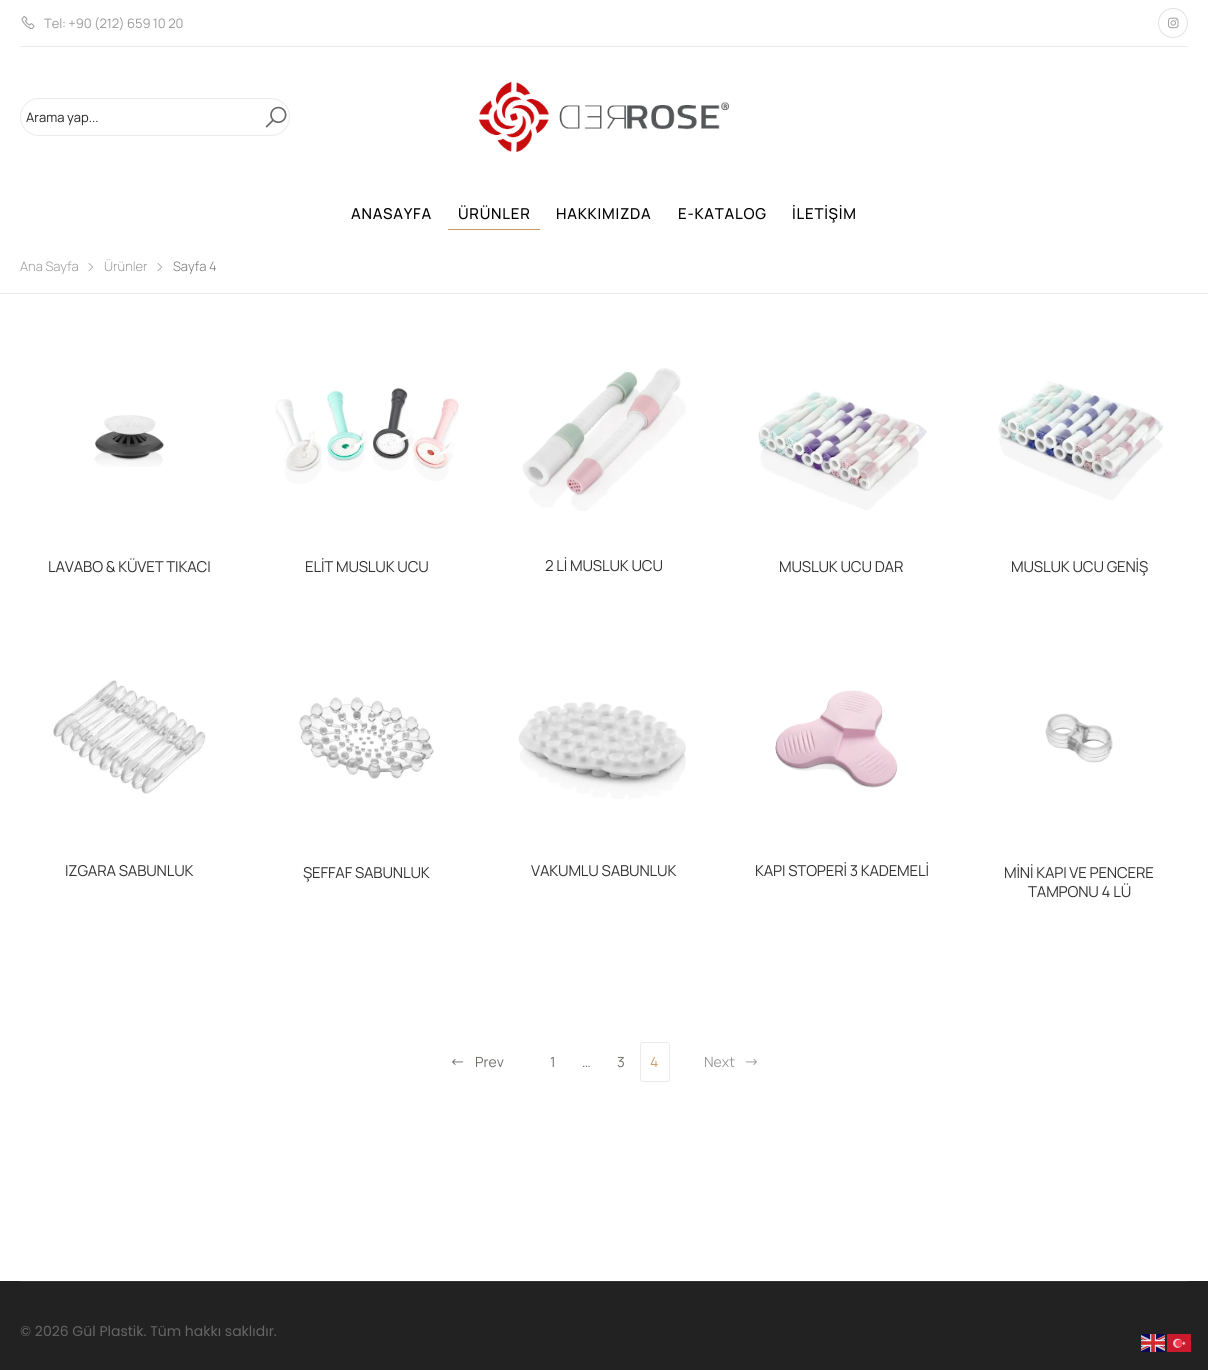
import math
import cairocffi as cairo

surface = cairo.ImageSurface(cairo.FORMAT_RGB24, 1208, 1370)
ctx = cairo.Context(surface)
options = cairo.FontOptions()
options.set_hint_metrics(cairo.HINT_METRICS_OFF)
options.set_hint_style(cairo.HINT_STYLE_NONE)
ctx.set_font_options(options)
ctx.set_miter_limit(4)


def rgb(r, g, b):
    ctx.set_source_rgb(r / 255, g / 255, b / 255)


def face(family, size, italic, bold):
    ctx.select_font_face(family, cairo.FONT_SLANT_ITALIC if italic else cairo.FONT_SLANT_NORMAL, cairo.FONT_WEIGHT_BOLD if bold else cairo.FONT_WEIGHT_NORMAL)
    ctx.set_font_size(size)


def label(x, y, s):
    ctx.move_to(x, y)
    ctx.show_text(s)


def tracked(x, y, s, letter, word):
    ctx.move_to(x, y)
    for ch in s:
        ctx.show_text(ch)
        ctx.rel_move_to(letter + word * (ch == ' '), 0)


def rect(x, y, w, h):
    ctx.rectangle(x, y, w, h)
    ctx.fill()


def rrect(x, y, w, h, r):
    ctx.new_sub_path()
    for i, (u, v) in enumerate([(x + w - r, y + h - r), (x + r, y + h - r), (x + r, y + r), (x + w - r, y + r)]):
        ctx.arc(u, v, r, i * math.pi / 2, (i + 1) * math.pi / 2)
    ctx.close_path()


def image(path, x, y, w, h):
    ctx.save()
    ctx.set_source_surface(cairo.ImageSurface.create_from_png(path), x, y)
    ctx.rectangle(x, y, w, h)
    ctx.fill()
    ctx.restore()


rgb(255, 255, 255)
ctx.paint()
rgb(235, 235, 235)
rect(20, 46, 1168, 1)
image('image0.png', 21, 16, 14, 14)
face('Manrope', 13, 0, 0)
rgb(153, 153, 153)
tracked(44, 28, 'Tel: +90 (212) 659 10 20', -0.1, 0)
ctx.new_path()
ctx.arc(1173, 23, 14.5, 0, 2 * math.pi)
rgb(225, 226, 230)
ctx.set_line_width(1)
ctx.stroke()
image('image1.png', 1168, 17, 11, 12)
rrect(20.5, 98.5, 269, 37, 18.5)
rgb(235, 235, 235)
ctx.stroke()
rgb(34, 34, 34)
label(26, 122, 'Arama yap...')
image('image2.png', 265, 106, 22, 22)
image('image3.png', 479, 82, 250, 70)
face('Manrope Medium', 15, 0, 0)
rgb(0, 0, 0)
tracked(351, 219, 'ANASAYFA', 0.75, 0)
tracked(458, 219, 'ÜRÜNLER', 0.75, 0)
rgb(204, 153, 102)
rect(448, 229, 92, 1)
rgb(0, 0, 0)
tracked(556, 219, 'HAKKIMIZDA', 0.75, 0)
tracked(678, 219, 'E-KATALOG', 0.75, 0)
tracked(792, 219, 'İLETİŞİM', 0.75, 0)
rgb(235, 235, 235)
rect(0, 293, 1208, 1)
face('Manrope Light', 13, 0, 0)
rgb(153, 153, 153)
label(20, 271, 'Ana Sayfa')
image('image4.png', 88, 263, 5, 9)
label(104, 271, 'Ürünler')
image('image4.png', 157, 263, 5, 9)
rgb(118, 118, 118)
label(173, 271, 'Sayfa 4')
image('image5.png', 94, 415, 70, 52)
face('Manrope', 15, 0, 0)
rgb(51, 51, 51)
tracked(48, 572, 'LAVABO & KÜVET TIKACI', -0.15, 0)
image('image6.png', 275, 388, 184, 96)
tracked(305, 572, 'ELİT MUSLUK UCU', -0.15, 0)
image('image7.png', 522, 368, 164, 143)
tracked(545, 571, '2 Lİ MUSLUK UCU', -0.15, 0)
image('image8.png', 758, 391, 169, 119)
tracked(779, 572, 'MUSLUK UCU DAR', -0.15, 0)
image('image9.png', 998, 381, 166, 120)
tracked(1011, 572, 'MUSLUK UCU GENİŞ', -0.15, 0)
image('image10.png', 53, 680, 153, 114)
tracked(65, 876, 'IZGARA SABUNLUK', -0.15, 0)
image('image11.png', 299, 697, 135, 82)
tracked(303, 878, 'ŞEFFAF SABUNLUK', -0.15, 0)
image('image12.png', 518, 702, 168, 97)
tracked(531, 876, 'VAKUMLU SABUNLUK', -0.15, 0)
image('image13.png', 775, 690, 123, 98)
tracked(755, 876, 'KAPI STOPERİ 3 KADEMELİ', -0.15, 0)
image('image14.png', 1045, 713, 68, 50)
tracked(1004, 878, 'MİNİ KAPI VE PENCERE', -0.15, 0)
tracked(1028, 897, 'TAMPONU 4 LÜ', -0.15, 0)
image('image15.png', 452, 1058, 12, 7)
face('Manrope', 14, 0, 0)
rgb(112, 111, 108)
label(475, 1067, 'Prev')
label(550, 1067, '1')
label(582, 1067, '…')
label(617, 1067, '3')
rrect(640.5, 1042.5, 29, 39, 2.5)
rgb(235, 235, 235)
ctx.stroke()
rgb(204, 153, 102)
label(650, 1067, '4')
rgb(153, 153, 153)
label(704, 1067, 'Next')
image('image16.png', 745, 1059, 12, 6)
rgb(34, 34, 34)
rect(0, 1281, 1208, 89)
rgb(51, 51, 51)
rect(20, 1281, 1168, 1)
face('Poppins', 14, 0, 0)
rgb(102, 102, 102)
label(20, 1336, '© 2026 Gül Plastik. Tüm hakkı saklıdır.')
image('image17.png', 1141, 1334, 24, 18)
image('image18.png', 1167, 1334, 24, 18)
surface.write_to_png('render.png')
